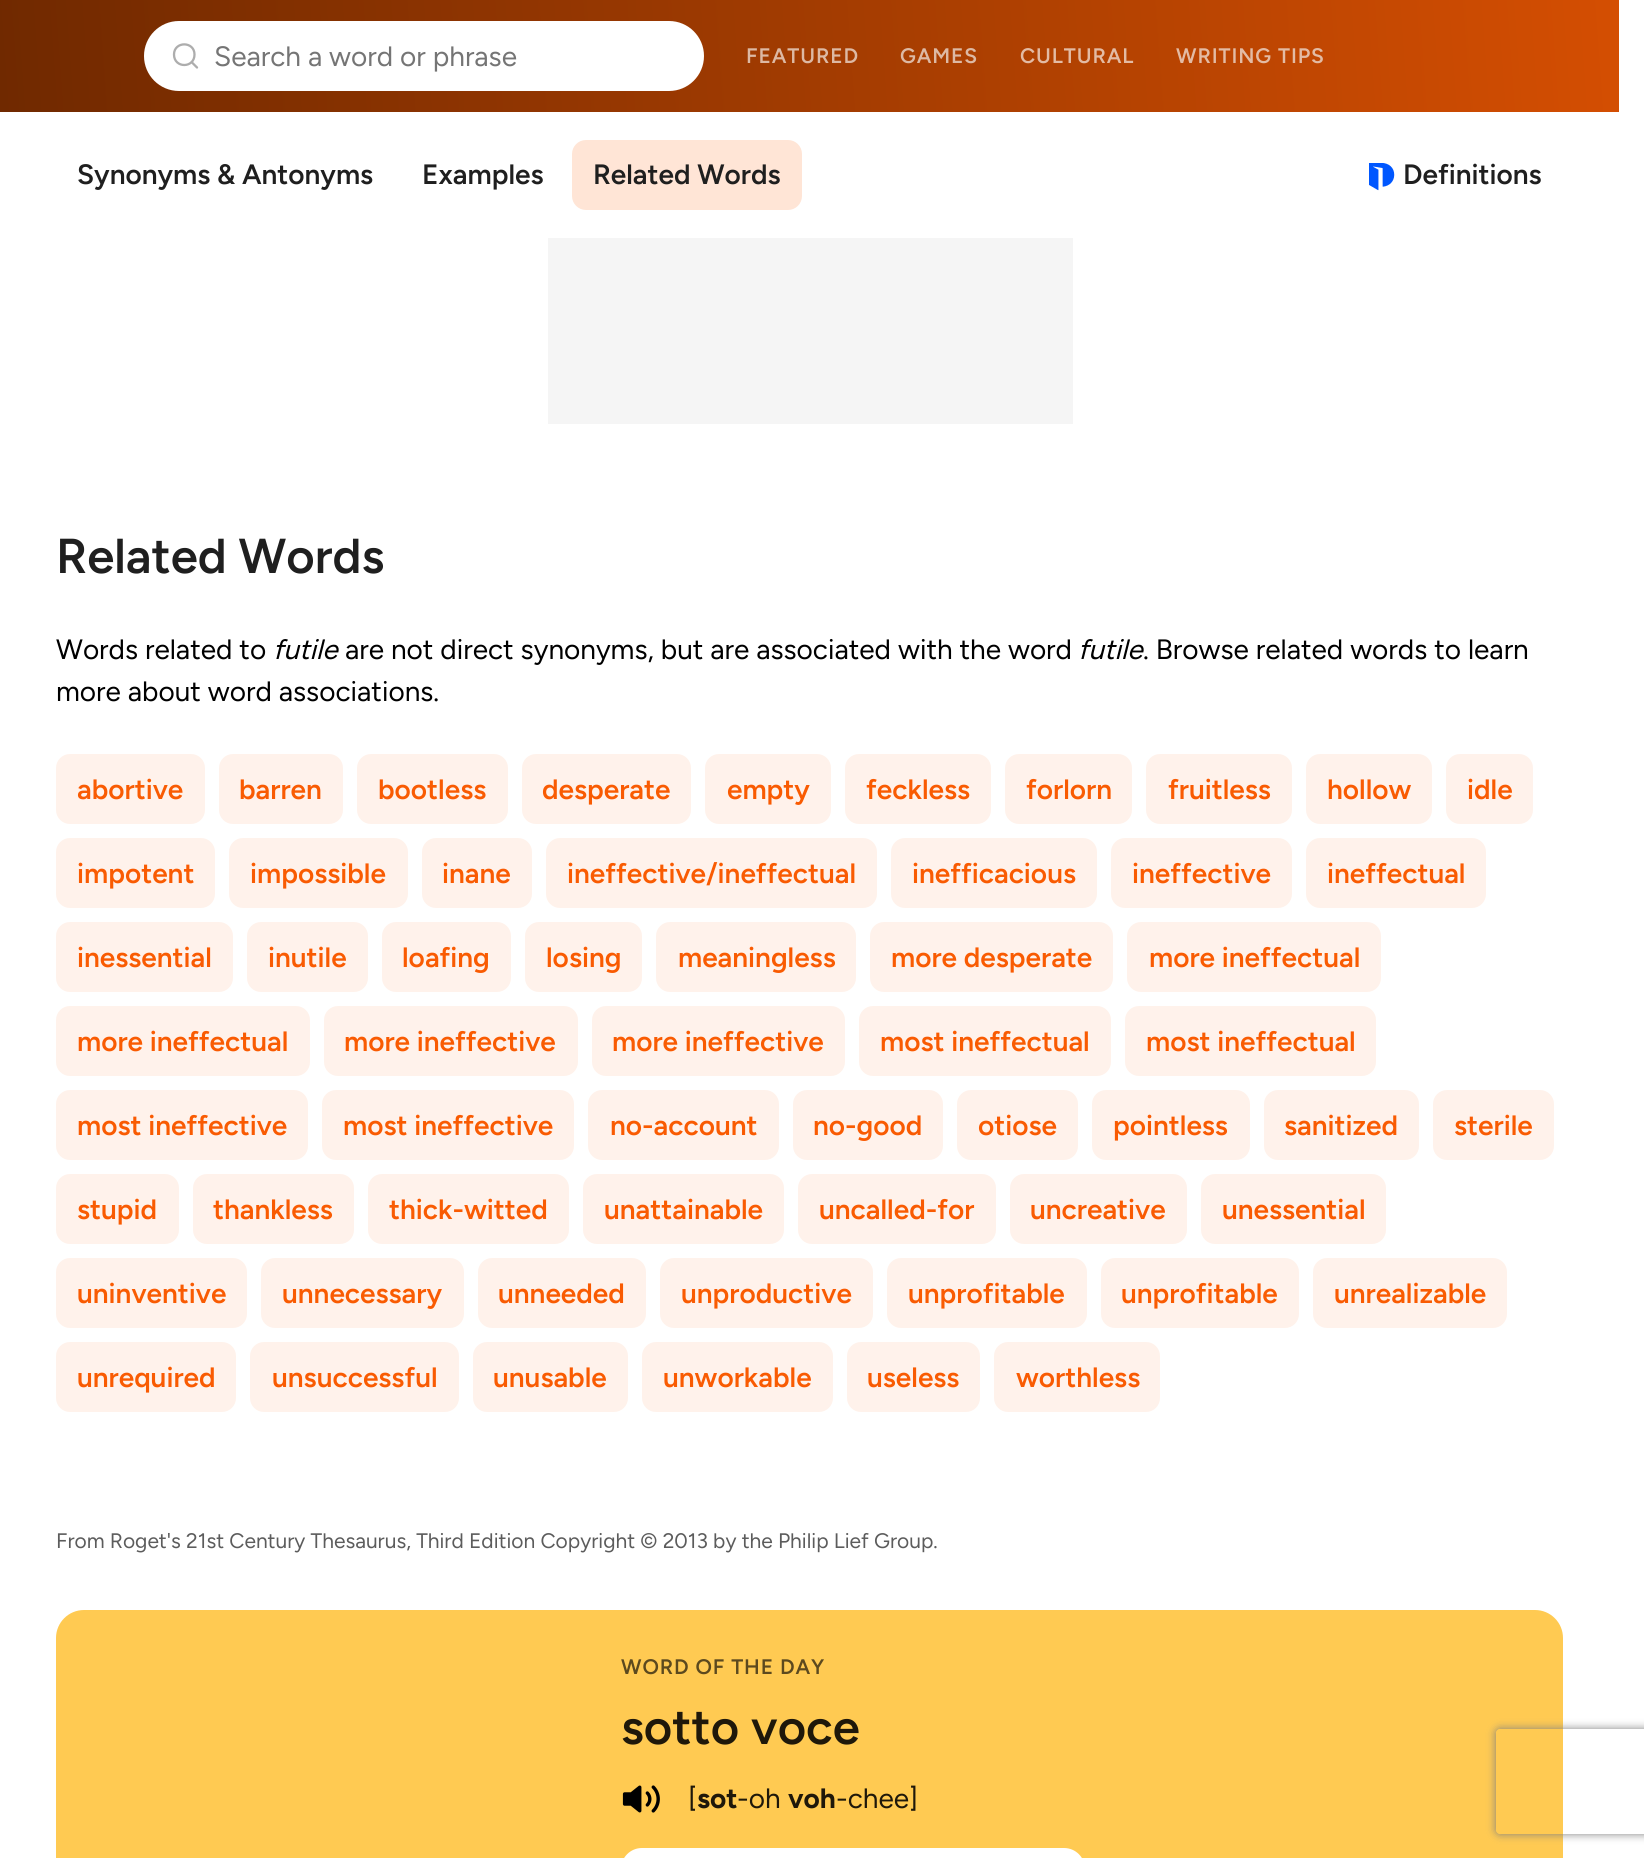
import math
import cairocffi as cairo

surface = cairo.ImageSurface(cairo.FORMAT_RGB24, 1644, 1858)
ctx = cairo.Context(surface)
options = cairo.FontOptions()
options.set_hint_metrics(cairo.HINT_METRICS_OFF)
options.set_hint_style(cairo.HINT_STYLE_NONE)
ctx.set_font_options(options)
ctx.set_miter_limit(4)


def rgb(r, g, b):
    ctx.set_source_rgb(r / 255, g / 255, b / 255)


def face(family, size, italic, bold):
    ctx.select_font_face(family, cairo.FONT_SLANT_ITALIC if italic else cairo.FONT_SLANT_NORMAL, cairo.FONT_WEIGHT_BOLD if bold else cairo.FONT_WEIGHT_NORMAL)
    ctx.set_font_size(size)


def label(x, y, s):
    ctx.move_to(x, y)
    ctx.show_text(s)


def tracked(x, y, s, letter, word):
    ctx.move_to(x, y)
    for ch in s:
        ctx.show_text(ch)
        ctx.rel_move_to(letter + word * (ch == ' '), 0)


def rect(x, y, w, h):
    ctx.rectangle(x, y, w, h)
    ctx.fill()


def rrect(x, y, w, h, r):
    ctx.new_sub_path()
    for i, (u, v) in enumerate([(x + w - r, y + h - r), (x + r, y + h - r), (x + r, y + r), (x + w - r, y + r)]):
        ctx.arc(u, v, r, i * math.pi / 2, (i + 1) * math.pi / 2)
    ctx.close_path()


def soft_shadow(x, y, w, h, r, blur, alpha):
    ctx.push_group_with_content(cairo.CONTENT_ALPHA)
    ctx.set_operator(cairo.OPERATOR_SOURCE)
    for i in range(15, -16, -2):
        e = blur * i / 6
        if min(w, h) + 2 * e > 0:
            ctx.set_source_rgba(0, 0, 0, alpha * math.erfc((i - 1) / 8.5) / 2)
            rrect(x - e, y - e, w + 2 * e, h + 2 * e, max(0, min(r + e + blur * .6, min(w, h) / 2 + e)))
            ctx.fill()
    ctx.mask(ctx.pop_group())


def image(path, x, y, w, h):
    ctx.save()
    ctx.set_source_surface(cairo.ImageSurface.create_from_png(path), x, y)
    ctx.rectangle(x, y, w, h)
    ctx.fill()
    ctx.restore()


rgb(255, 255, 255)
ctx.paint()
gradient = cairo.LinearGradient(0.3, 115, 1618, -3.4)
gradient.add_color_stop_rgba(0, 0.439, 0.161, 0, 1)
gradient.add_color_stop_rgba(1, 0.831, 0.306, 0.008, 1)
ctx.set_source(gradient)
rect(0, 0, 1619, 112)
rgb(255, 255, 255)
rrect(144, 21, 560, 70, 35)
ctx.fill()
ctx.new_path()
ctx.move_to(197, 67.5)
ctx.line_to(191.5, 62)
ctx.move_to(194.5, 54.5)
ctx.curve_to(194.5, 68.5, 174, 68.5, 174, 54.5)
ctx.curve_to(174, 41, 194.5, 41, 194.5, 54.5)
ctx.close_path()
rgb(173, 173, 173)
ctx.set_line_width(2.3)
ctx.set_line_cap(cairo.LINE_CAP_ROUND)
ctx.set_line_join(cairo.LINE_JOIN_ROUND)
ctx.stroke()
face('Figtree', 28, 0, 0)
rgb(117, 117, 117)
label(214, 66, 'Search a word or phrase')
face('Figtree SemiBold', 21, 0, 0)
rgb(221, 185, 164)
tracked(746, 63, 'FEATURED', 0.9, 0)
tracked(900, 63, 'GAMES', 0.9, 0)
rgb(227, 187, 164)
tracked(1020, 63, 'CULTURAL', 0.9, 0)
tracked(1176, 63, 'WRITING TIPS', 0.9, 0)
face('Figtree SemiBold', 28, 0, 0)
rgb(31, 31, 31)
label(77, 184, 'Synonyms & Antonyms')
label(422, 184, 'Examples')
rgb(255, 229, 214)
rrect(572, 140, 230, 70, 14)
ctx.fill()
rgb(31, 31, 31)
label(593, 184, 'Related Words')
image('image0.png', 1369, 163, 26, 28)
label(1403, 184, 'Definitions')
rgb(245, 245, 245)
rect(548, 238, 525, 186)
face('Figtree SemiBold', 49, 0, 0)
rgb(31, 31, 31)
label(56, 573, 'Related Words')
face('Figtree', 28, 0, 0)
rgb(0, 0, 0)
label(56, 659, 'Words related to')
face('Figtree', 28, 1, 0)
label(273, 659, 'futile')
face('Figtree', 28, 0, 0)
label(345, 659, 'are not direct synonyms, but are associated with the word')
face('Figtree', 28, 1, 0)
label(1078, 659, 'futile')
face('Figtree', 28, 0, 0)
label(1143, 659, '. Browse related words to learn')
label(56, 701, 'more about word associations.')
rgb(255, 242, 235)
rrect(56, 754, 149, 70, 14)
ctx.fill()
face('Figtree SemiBold', 28, 0, 0)
rgb(249, 91, 2)
label(77, 799, 'abortive')
rgb(255, 242, 235)
rrect(219, 754, 124, 70, 14)
ctx.fill()
rgb(249, 91, 2)
label(239, 799, 'barren')
rgb(255, 242, 235)
rrect(357, 754, 151, 70, 14)
ctx.fill()
rgb(249, 91, 2)
label(378, 799, 'bootless')
rgb(255, 242, 235)
rrect(522, 754, 169, 70, 14)
ctx.fill()
rgb(249, 91, 2)
label(542, 799, 'desperate')
rgb(255, 242, 235)
rrect(705, 754, 126, 70, 14)
ctx.fill()
rgb(249, 91, 2)
label(727, 799, 'empty')
rgb(255, 242, 235)
rrect(845, 754, 146, 70, 14)
ctx.fill()
rgb(249, 91, 2)
label(866, 799, 'feckless')
rgb(255, 242, 235)
rrect(1005, 754, 127, 70, 14)
ctx.fill()
rgb(249, 91, 2)
label(1026, 799, 'forlorn')
rgb(255, 242, 235)
rrect(1146, 754, 146, 70, 14)
ctx.fill()
rgb(249, 91, 2)
label(1168, 799, 'fruitless')
rgb(255, 242, 235)
rrect(1306, 754, 126, 70, 14)
ctx.fill()
rgb(249, 91, 2)
label(1327, 799, 'hollow')
rgb(255, 242, 235)
rrect(1446, 754, 87, 70, 14)
ctx.fill()
rgb(249, 91, 2)
label(1467, 799, 'idle')
rgb(255, 242, 235)
rrect(56, 838, 159, 70, 14)
ctx.fill()
rgb(249, 91, 2)
label(77, 883, 'impotent')
rgb(255, 242, 235)
rrect(229, 838, 179, 70, 14)
ctx.fill()
rgb(249, 91, 2)
label(250, 883, 'impossible')
rgb(255, 242, 235)
rrect(422, 838, 110, 70, 14)
ctx.fill()
rgb(249, 91, 2)
label(442, 883, 'inane')
rgb(255, 242, 235)
rrect(546, 838, 331, 70, 14)
ctx.fill()
rgb(249, 91, 2)
label(567, 883, 'ineffective/ineffectual')
rgb(255, 242, 235)
rrect(891, 838, 206, 70, 14)
ctx.fill()
rgb(249, 91, 2)
label(912, 883, 'inefficacious')
rgb(255, 242, 235)
rrect(1111, 838, 181, 70, 14)
ctx.fill()
rgb(249, 91, 2)
label(1132, 883, 'ineffective')
rgb(255, 242, 235)
rrect(1306, 838, 180, 70, 14)
ctx.fill()
rgb(249, 91, 2)
label(1327, 883, 'ineffectual')
rgb(255, 242, 235)
rrect(56, 922, 177, 70, 14)
ctx.fill()
rgb(249, 91, 2)
label(77, 967, 'inessential')
rgb(255, 242, 235)
rrect(247, 922, 121, 70, 14)
ctx.fill()
rgb(249, 91, 2)
label(268, 967, 'inutile')
rgb(255, 242, 235)
rrect(382, 922, 129, 70, 14)
ctx.fill()
rgb(249, 91, 2)
label(402, 967, 'loafing')
rgb(255, 242, 235)
rrect(525, 922, 117, 70, 14)
ctx.fill()
rgb(249, 91, 2)
label(546, 967, 'losing')
rgb(255, 242, 235)
rrect(656, 922, 200, 70, 14)
ctx.fill()
rgb(249, 91, 2)
label(678, 967, 'meaningless')
rgb(255, 242, 235)
rrect(870, 922, 243, 70, 14)
ctx.fill()
rgb(249, 91, 2)
label(891, 967, 'more desperate')
rgb(255, 242, 235)
rrect(1127, 922, 254, 70, 14)
ctx.fill()
rgb(249, 91, 2)
label(1149, 967, 'more ineffectual')
rgb(255, 242, 235)
rrect(56, 1006, 254, 70, 14)
ctx.fill()
rgb(249, 91, 2)
label(77, 1051, 'more ineffectual')
rgb(255, 242, 235)
rrect(324, 1006, 254, 70, 14)
ctx.fill()
rgb(249, 91, 2)
label(344, 1051, 'more ineffective')
rgb(255, 242, 235)
rrect(592, 1006, 253, 70, 14)
ctx.fill()
rgb(249, 91, 2)
label(612, 1051, 'more ineffective')
rgb(255, 242, 235)
rrect(859, 1006, 252, 70, 14)
ctx.fill()
rgb(249, 91, 2)
label(880, 1051, 'most ineffectual')
rgb(255, 242, 235)
rrect(1125, 1006, 251, 70, 14)
ctx.fill()
rgb(249, 91, 2)
label(1146, 1051, 'most ineffectual')
rgb(255, 242, 235)
rrect(56, 1090, 252, 70, 14)
ctx.fill()
rgb(249, 91, 2)
label(77, 1135, 'most ineffective')
rgb(255, 242, 235)
rrect(322, 1090, 252, 70, 14)
ctx.fill()
rgb(249, 91, 2)
label(343, 1135, 'most ineffective')
rgb(255, 242, 235)
rrect(588, 1090, 191, 70, 14)
ctx.fill()
rgb(249, 91, 2)
label(610, 1135, 'no-account')
rgb(255, 242, 235)
rrect(793, 1090, 150, 70, 14)
ctx.fill()
rgb(249, 91, 2)
label(813, 1135, 'no-good')
rgb(255, 242, 235)
rrect(957, 1090, 121, 70, 14)
ctx.fill()
rgb(249, 91, 2)
label(978, 1135, 'otiose')
rgb(255, 242, 235)
rrect(1092, 1090, 158, 70, 14)
ctx.fill()
rgb(249, 91, 2)
label(1113, 1135, 'pointless')
rgb(255, 242, 235)
rrect(1264, 1090, 155, 70, 14)
ctx.fill()
rgb(249, 91, 2)
label(1284, 1135, 'sanitized')
rgb(255, 242, 235)
rrect(1433, 1090, 121, 70, 14)
ctx.fill()
rgb(249, 91, 2)
label(1454, 1135, 'sterile')
rgb(255, 242, 235)
rrect(56, 1174, 123, 70, 14)
ctx.fill()
rgb(249, 91, 2)
label(77, 1219, 'stupid')
rgb(255, 242, 235)
rrect(193, 1174, 161, 70, 14)
ctx.fill()
rgb(249, 91, 2)
label(213, 1219, 'thankless')
rgb(255, 242, 235)
rrect(368, 1174, 201, 70, 14)
ctx.fill()
rgb(249, 91, 2)
label(389, 1219, 'thick-witted')
rgb(255, 242, 235)
rrect(583, 1174, 201, 70, 14)
ctx.fill()
rgb(249, 91, 2)
label(604, 1219, 'unattainable')
rgb(255, 242, 235)
rrect(798, 1174, 198, 70, 14)
ctx.fill()
rgb(249, 91, 2)
label(819, 1219, 'uncalled-for')
rgb(255, 242, 235)
rrect(1010, 1174, 177, 70, 14)
ctx.fill()
rgb(249, 91, 2)
label(1030, 1219, 'uncreative')
rgb(255, 242, 235)
rrect(1201, 1174, 185, 70, 14)
ctx.fill()
rgb(249, 91, 2)
label(1222, 1219, 'unessential')
rgb(255, 242, 235)
rrect(56, 1258, 191, 70, 14)
ctx.fill()
rgb(249, 91, 2)
label(77, 1303, 'uninventive')
rgb(255, 242, 235)
rrect(261, 1258, 203, 70, 14)
ctx.fill()
rgb(249, 91, 2)
label(282, 1303, 'unnecessary')
rgb(255, 242, 235)
rrect(478, 1258, 168, 70, 14)
ctx.fill()
rgb(249, 91, 2)
label(498, 1303, 'unneeded')
rgb(255, 242, 235)
rrect(660, 1258, 213, 70, 14)
ctx.fill()
rgb(249, 91, 2)
label(681, 1303, 'unproductive')
rgb(255, 242, 235)
rrect(887, 1258, 200, 70, 14)
ctx.fill()
rgb(249, 91, 2)
label(908, 1303, 'unprofitable')
rgb(255, 242, 235)
rrect(1101, 1258, 198, 70, 14)
ctx.fill()
rgb(249, 91, 2)
label(1121, 1303, 'unprofitable')
rgb(255, 242, 235)
rrect(1313, 1258, 194, 70, 14)
ctx.fill()
rgb(249, 91, 2)
label(1334, 1303, 'unrealizable')
rgb(255, 242, 235)
rrect(56, 1342, 180, 70, 14)
ctx.fill()
rgb(249, 91, 2)
label(77, 1387, 'unrequired')
rgb(255, 242, 235)
rrect(250, 1342, 209, 70, 14)
ctx.fill()
rgb(249, 91, 2)
label(272, 1387, 'unsuccessful')
rgb(255, 242, 235)
rrect(473, 1342, 155, 70, 14)
ctx.fill()
rgb(249, 91, 2)
label(493, 1387, 'unusable')
rgb(255, 242, 235)
rrect(642, 1342, 191, 70, 14)
ctx.fill()
rgb(249, 91, 2)
label(663, 1387, 'unworkable')
rgb(255, 242, 235)
rrect(847, 1342, 133, 70, 14)
ctx.fill()
rgb(249, 91, 2)
label(867, 1387, 'useless')
rgb(255, 242, 235)
rrect(994, 1342, 166, 70, 14)
ctx.fill()
rgb(249, 91, 2)
label(1016, 1387, 'worthless')
face('Figtree', 21, 0, 0)
rgb(92, 92, 92)
label(56, 1548, 'From Roget\'s 21st Century Thesaurus, Third Edition Copyright © 2013 by the Philip Lief Group.')
rgb(255, 202, 82)
rrect(56, 1610, 1507, 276, 28)
ctx.fill()
face('Figtree SemiBold', 21, 0, 0)
rgb(92, 73, 30)
tracked(621, 1674, 'WORD OF THE DAY', 0.9, 0)
face('Figtree SemiBold', 49, 0, 0)
rgb(31, 24, 10)
label(621, 1744, 'sotto voce')
image('image1.png', 622, 1785, 38, 28)
face('Figtree', 28, 0, 0)
label(688, 1808, '[')
face('Figtree', 28, 0, 1)
label(697, 1808, 'sot')
face('Figtree', 28, 0, 0)
label(737, 1808, '-oh')
face('Figtree', 28, 0, 1)
label(788, 1808, 'voh')
face('Figtree', 28, 0, 0)
label(836, 1808, '-chee]')
rgb(255, 255, 255)
rrect(621, 1848, 464, 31, 21)
ctx.fill()
ctx.save()
ctx.set_fill_rule(cairo.FILL_RULE_EVEN_ODD)
ctx.new_path()
ctx.move_to(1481, 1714)
ctx.line_to(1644, 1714)
ctx.line_to(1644, 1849)
ctx.line_to(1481, 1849)
ctx.close_path()
ctx.move_to(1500, 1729)
ctx.line_to(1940, 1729)
ctx.curve_to(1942, 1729, 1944, 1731, 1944, 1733)
ctx.line_to(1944, 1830)
ctx.curve_to(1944, 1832, 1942, 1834, 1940, 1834)
ctx.line_to(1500, 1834)
ctx.curve_to(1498, 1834, 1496, 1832, 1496, 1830)
ctx.line_to(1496, 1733)
ctx.curve_to(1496, 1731, 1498, 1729, 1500, 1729)
ctx.close_path()
ctx.clip()
rgb(128, 128, 128)
soft_shadow(1496, 1729, 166, 105, 4, 4.5, 1)
ctx.restore()
surface.write_to_png('render.png')
